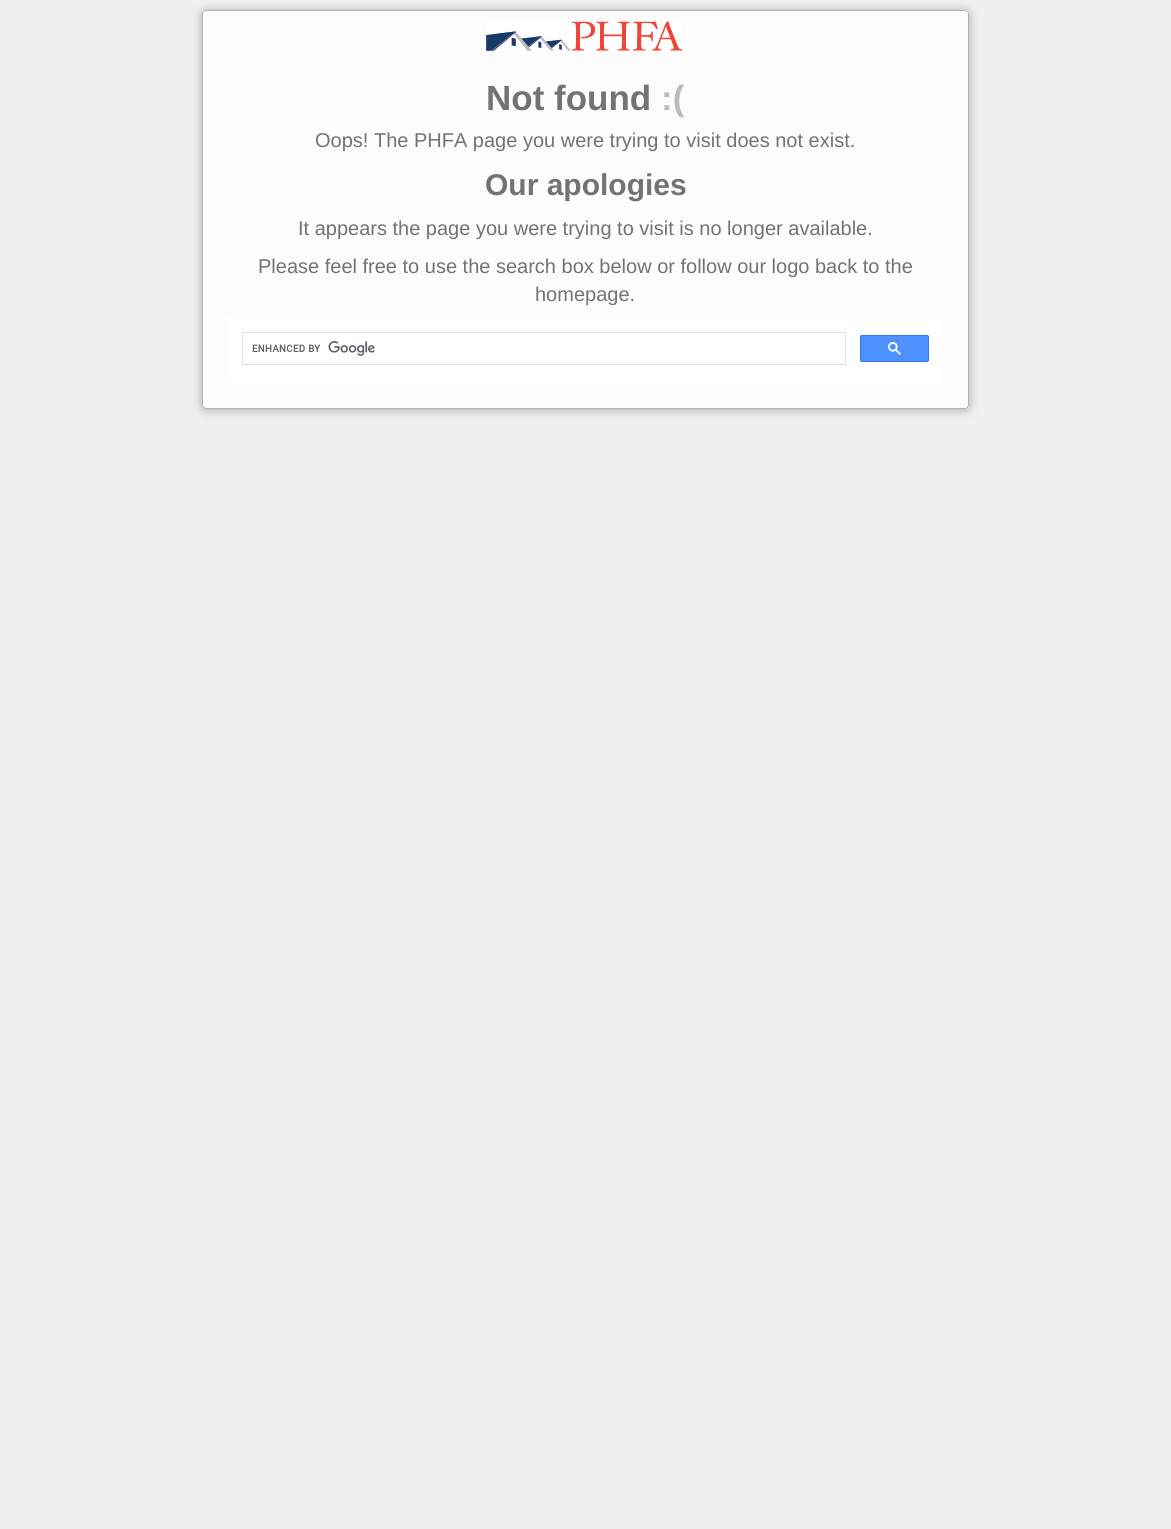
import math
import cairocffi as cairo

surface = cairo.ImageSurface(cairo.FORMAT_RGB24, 1171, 1529)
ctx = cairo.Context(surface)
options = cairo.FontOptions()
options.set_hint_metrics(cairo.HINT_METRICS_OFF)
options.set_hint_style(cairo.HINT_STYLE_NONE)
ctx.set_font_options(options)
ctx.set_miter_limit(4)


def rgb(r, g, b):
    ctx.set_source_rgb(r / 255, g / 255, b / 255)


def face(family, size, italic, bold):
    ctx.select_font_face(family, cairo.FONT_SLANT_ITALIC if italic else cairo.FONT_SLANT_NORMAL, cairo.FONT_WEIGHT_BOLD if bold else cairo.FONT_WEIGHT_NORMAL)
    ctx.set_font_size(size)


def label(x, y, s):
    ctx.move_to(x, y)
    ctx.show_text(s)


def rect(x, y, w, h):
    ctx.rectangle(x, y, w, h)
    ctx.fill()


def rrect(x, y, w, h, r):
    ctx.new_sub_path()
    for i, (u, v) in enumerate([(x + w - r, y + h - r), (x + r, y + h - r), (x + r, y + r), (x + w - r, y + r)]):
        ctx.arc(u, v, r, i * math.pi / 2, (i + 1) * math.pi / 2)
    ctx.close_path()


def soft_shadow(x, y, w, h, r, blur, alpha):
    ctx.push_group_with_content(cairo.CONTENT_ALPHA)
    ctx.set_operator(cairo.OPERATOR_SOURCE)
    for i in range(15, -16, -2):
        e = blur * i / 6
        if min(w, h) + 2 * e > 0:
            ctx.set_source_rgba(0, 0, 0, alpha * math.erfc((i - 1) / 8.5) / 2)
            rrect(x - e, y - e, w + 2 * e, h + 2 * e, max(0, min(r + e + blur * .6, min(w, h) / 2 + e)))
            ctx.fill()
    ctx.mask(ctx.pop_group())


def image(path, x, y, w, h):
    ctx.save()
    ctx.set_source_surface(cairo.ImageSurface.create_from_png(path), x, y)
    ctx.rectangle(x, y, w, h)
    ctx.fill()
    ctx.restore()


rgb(240, 240, 240)
ctx.paint()
rgb(255, 255, 255)
rect(202, 10, 767, 399)
rgb(167, 167, 167)
soft_shadow(202, 11, 767, 399, 4, 5, 1)
rgb(252, 252, 252)
rrect(202, 10, 767, 399, 4)
ctx.fill()
rgb(255, 255, 255)
ctx.new_path()
ctx.move_to(206, 12)
ctx.line_to(965, 12)
ctx.curve_to(967, 12, 968, 13, 968, 15)
ctx.curve_to(968, 13, 967, 11, 965, 11)
ctx.line_to(206, 11)
ctx.curve_to(204, 11, 203, 13, 203, 15)
ctx.curve_to(203, 13, 204, 12, 206, 12)
ctx.close_path()
ctx.fill()
rrect(202.5, 10.5, 766, 398, 3.5)
rgb(179, 179, 179)
ctx.set_line_width(1)
ctx.stroke()
image('image0.png', 486, 21, 196, 30)
face('Liberation Sans', 35, 0, 1)
rgb(115, 115, 115)
label(486, 110, 'Not found')
rgb(187, 187, 187)
label(661, 110, ':(')
face('Liberation Sans', 20, 0, 0)
rgb(115, 115, 115)
label(315, 147, 'Oops! The PHFA page you were trying to visit does not exist.')
face('Liberation Sans', 30, 0, 1)
label(485, 195, 'Our apologies')
face('Liberation Sans', 20, 0, 0)
label(298, 235, 'It appears the page you were trying to visit is no longer available.')
label(258, 273, 'Please feel free to use the search box below or follow our logo back to the')
label(535, 301, 'homepage.')
rgb(255, 255, 255)
rect(228, 318, 715, 65)
ctx.rectangle(242.5, 332.5, 603, 32)
rgb(223, 225, 229)
ctx.stroke()
image('image1.png', 252, 341, 123, 15)
rgb(77, 144, 254)
rrect(860.5, 335.5, 68, 26, 1.5)
ctx.fill_preserve()
rgb(48, 121, 237)
ctx.stroke()
image('image2.png', 888, 342, 13, 13)
surface.write_to_png('render.png')
